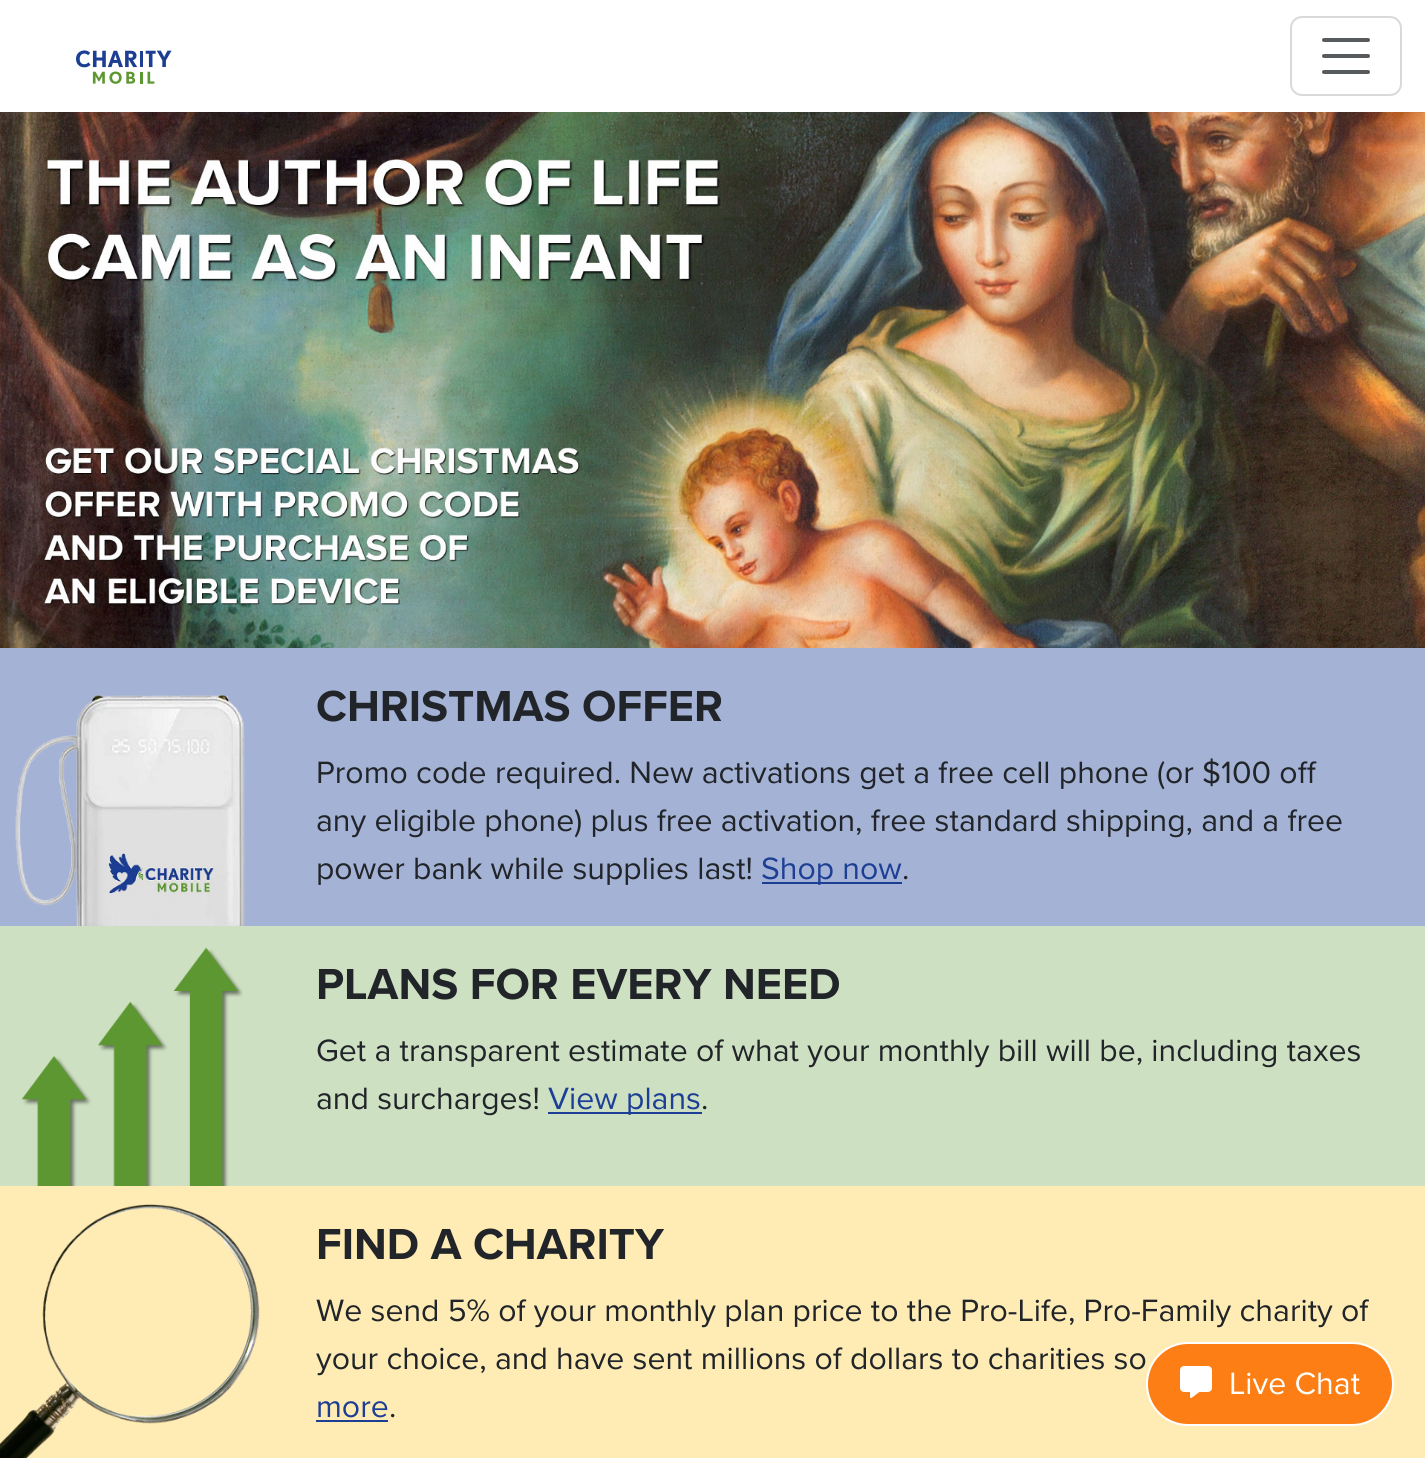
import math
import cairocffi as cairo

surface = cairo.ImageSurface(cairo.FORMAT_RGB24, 1425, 1458)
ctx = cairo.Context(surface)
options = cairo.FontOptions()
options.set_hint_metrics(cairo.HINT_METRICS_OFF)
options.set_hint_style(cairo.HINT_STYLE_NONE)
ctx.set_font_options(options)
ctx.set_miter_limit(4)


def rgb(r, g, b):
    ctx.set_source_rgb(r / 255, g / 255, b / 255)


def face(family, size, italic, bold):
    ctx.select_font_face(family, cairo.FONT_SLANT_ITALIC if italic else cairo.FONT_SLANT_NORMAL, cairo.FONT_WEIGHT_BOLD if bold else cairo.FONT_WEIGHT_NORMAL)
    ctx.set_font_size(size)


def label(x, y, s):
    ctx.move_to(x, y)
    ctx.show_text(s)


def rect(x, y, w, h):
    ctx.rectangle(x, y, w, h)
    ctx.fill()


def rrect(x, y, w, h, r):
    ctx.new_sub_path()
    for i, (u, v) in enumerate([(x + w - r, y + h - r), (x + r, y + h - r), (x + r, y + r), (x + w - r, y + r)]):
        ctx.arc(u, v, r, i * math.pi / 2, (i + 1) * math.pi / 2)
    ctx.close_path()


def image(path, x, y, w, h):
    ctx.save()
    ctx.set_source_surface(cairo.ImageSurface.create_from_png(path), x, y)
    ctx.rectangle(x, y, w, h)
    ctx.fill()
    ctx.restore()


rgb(255, 255, 255)
ctx.paint()
image('image0.png', 76, 50, 96, 34)
rrect(1291, 17, 110, 78, 11)
rgb(217, 217, 217)
ctx.stroke()
ctx.new_path()
ctx.move_to(1324, 40)
ctx.line_to(1368, 40)
ctx.move_to(1324, 56)
ctx.line_to(1368, 56)
ctx.move_to(1324, 72)
ctx.line_to(1368, 72)
rgb(89, 92, 95)
ctx.set_line_width(4)
ctx.set_line_cap(cairo.LINE_CAP_ROUND)
ctx.stroke()
image('image1.png', 0, 112, 1425, 536)
rgb(164, 178, 213)
rect(0, 648, 1425, 278)
image('image2.png', 15, 694, 230, 232)
face('Proxima Nova', 45, 0, 1)
rgb(33, 37, 41)
label(316, 721, 'CHRISTMAS OFFER')
face('Proxima Nova', 32, 0, 0)
label(316, 783, 'Promo code required. New activations get a free cell phone (or $100 off')
label(316, 831, 'any eligible phone) plus free activation, free standard shipping, and a free')
label(316, 879, 'power bank while supplies last!')
rgb(28, 63, 149)
rect(762, 882, 140, 2)
label(761, 879, 'Shop now')
rgb(33, 37, 41)
label(902, 879, '.')
rgb(206, 224, 194)
rect(0, 926, 1425, 260)
image('image3.png', 21, 947, 222, 239)
face('Proxima Nova', 45, 0, 1)
rgb(33, 37, 41)
label(316, 999, 'PLANS FOR EVERY NEED')
face('Proxima Nova', 32, 0, 0)
label(316, 1061, 'Get a transparent estimate of what your monthly bill will be, including taxes')
label(316, 1109, 'and surcharges!')
rgb(28, 63, 149)
rect(548, 1112, 154, 2)
label(548, 1109, 'View plans')
rgb(33, 37, 41)
label(701, 1109, '.')
rgb(255, 236, 181)
rect(0, 1186, 1425, 272)
image('image4.png', 0, 1204, 260, 254)
face('Proxima Nova', 45, 0, 1)
rgb(33, 37, 41)
label(316, 1259, 'FIND A CHARITY')
face('Proxima Nova', 32, 0, 0)
label(316, 1321, 'We send 5% of your monthly plan price to the Pro-Life, Pro-Family charity of')
label(316, 1369, 'your choice, and have sent millions of dollars to charities so')
rgb(28, 63, 149)
label(316, 1417, 'more')
rect(316, 1420, 72, 2)
rgb(33, 37, 41)
label(389, 1417, '.')
rgb(253, 126, 20)
rrect(1147, 1343, 246, 82, 41)
ctx.fill_preserve()
rgb(255, 255, 255)
ctx.set_line_width(2)
ctx.set_line_cap(cairo.LINE_CAP_BUTT)
ctx.stroke()
image('image5.png', 1180, 1366, 32, 32)
label(1229, 1394, 'Live Chat')
surface.write_to_png('render.png')
